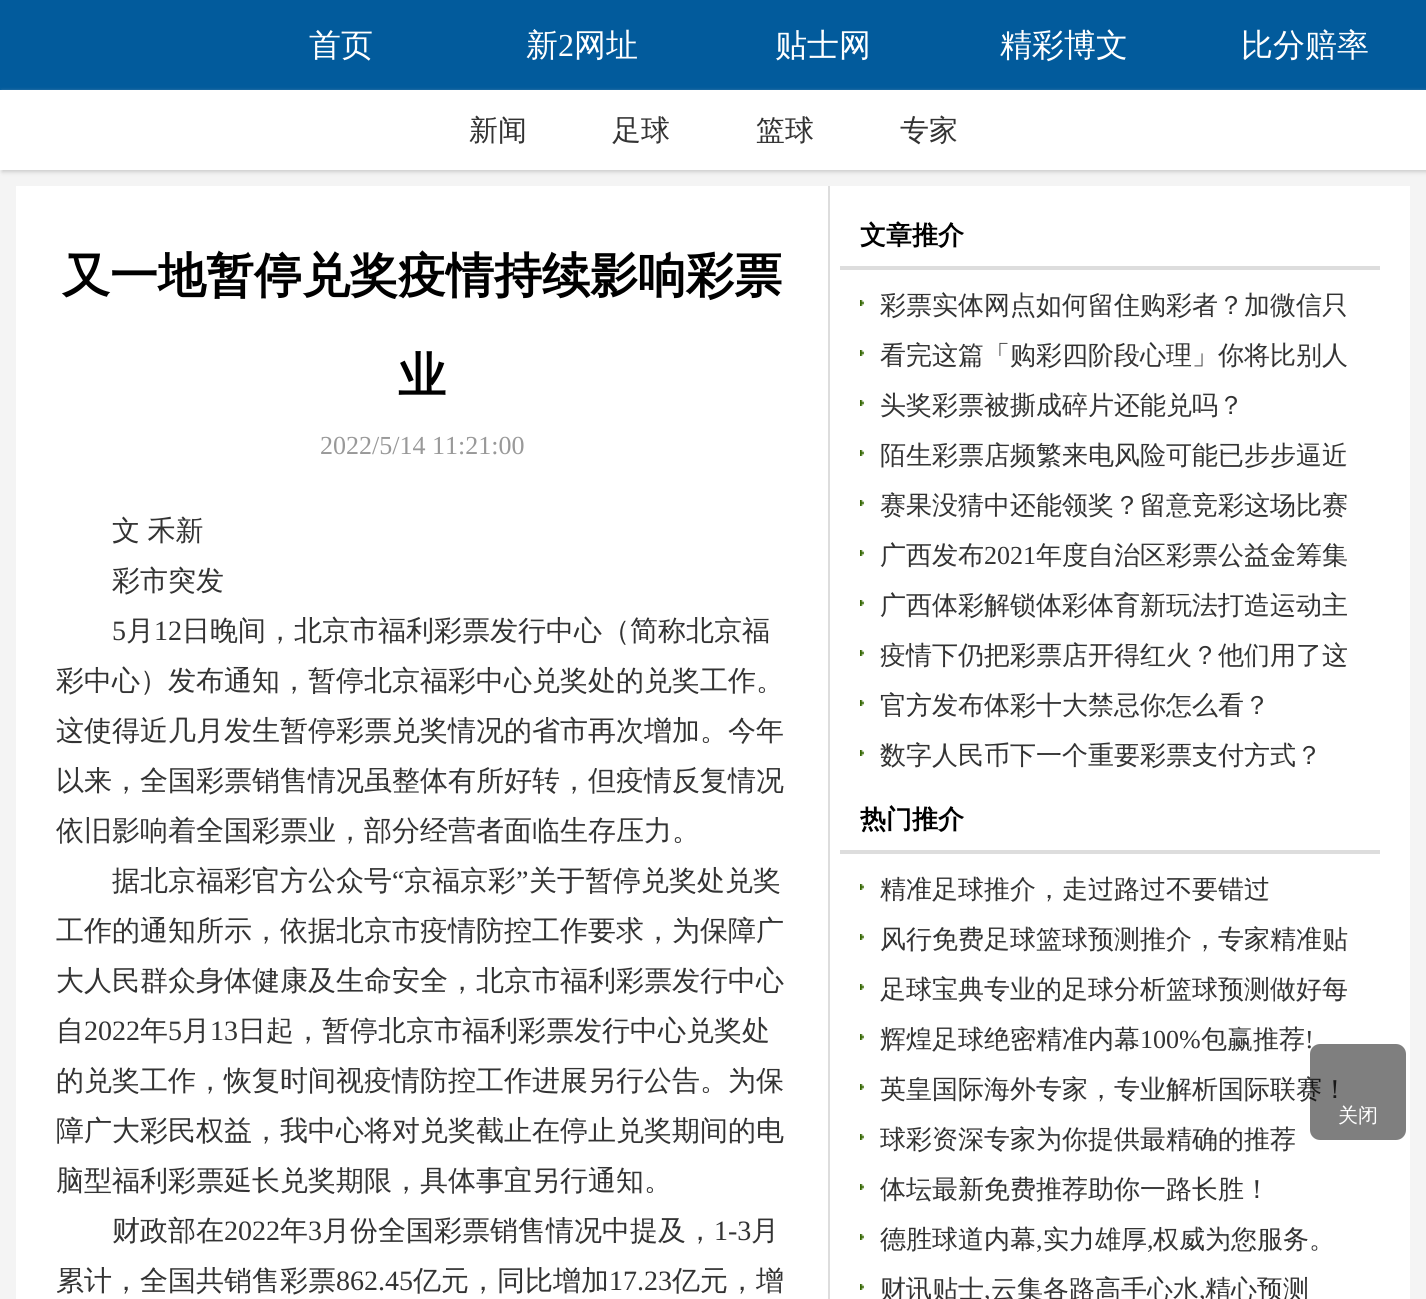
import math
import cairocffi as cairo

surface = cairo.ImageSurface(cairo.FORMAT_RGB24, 1426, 1299)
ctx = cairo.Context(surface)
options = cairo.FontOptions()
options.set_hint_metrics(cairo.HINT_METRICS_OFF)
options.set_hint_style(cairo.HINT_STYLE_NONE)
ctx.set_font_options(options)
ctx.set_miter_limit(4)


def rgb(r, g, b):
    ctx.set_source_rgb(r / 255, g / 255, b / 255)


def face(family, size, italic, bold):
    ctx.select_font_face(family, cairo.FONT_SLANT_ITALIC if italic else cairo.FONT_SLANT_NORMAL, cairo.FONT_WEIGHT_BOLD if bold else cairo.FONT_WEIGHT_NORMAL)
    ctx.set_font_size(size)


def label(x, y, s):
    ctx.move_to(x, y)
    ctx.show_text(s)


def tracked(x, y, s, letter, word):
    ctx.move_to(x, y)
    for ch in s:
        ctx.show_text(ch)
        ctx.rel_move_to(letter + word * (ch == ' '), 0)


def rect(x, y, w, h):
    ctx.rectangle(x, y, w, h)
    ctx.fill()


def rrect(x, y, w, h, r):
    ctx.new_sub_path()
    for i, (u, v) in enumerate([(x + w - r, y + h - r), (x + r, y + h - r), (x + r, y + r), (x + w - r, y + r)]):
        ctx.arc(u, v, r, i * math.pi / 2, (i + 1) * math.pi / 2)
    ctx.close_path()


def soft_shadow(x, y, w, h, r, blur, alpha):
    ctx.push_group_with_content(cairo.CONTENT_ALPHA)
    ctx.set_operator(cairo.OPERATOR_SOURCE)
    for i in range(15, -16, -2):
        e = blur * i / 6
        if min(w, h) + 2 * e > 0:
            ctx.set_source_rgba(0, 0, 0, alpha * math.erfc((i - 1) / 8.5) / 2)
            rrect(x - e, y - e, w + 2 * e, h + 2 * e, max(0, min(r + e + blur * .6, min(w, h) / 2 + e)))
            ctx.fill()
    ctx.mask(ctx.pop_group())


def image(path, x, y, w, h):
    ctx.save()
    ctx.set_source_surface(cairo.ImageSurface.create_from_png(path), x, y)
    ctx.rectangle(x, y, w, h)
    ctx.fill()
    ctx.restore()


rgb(244, 244, 244)
ctx.paint()
rgb(2, 91, 156)
rect(0, 0, 1426, 90)
face('WenQuanYi Zen Hei Medium', 32, 0, 0)
rgb(255, 255, 255)
label(309, 56, '首页')
label(526, 56, '新')
face('Liberation Serif', 32, 0, 0)
label(558, 56, '2')
face('WenQuanYi Zen Hei Medium', 32, 0, 0)
label(574, 56, '网址')
label(775, 56, '贴士网')
label(1000, 56, '精彩博文')
label(1241, 56, '比分赔率')
rgb(204, 204, 204)
soft_shadow(2, 92, 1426, 80, 0, 2, 1)
rgb(255, 255, 255)
rect(0, 90, 1426, 80)
face('WenQuanYi Zen Hei Medium', 29, 0, 0)
rgb(51, 51, 51)
label(469, 140, '新闻')
label(612, 140, '足球')
label(756, 140, '篮球')
label(900, 140, '专家')
rgb(255, 255, 255)
rect(16, 186, 1394, 1113)
rgb(221, 221, 221)
rect(828, 186, 2, 1113)
face('WenQuanYi Zen Hei', 48, 0, 1)
rgb(0, 0, 0)
label(62, 292, '又一地暂停兑奖疫情持续影响彩票')
label(398, 392, '业')
face('Liberation Serif', 26, 0, 0)
rgb(153, 153, 153)
label(320, 454, '2022/5/14 11:21:00')
face('WenQuanYi Zen Hei Medium', 28, 0, 0)
rgb(51, 51, 51)
tracked(112, 540, '文 禾新', 0, -1)
label(112, 590, '彩市突发')
face('Liberation Serif', 28, 0, 0)
label(112, 640, '5')
face('WenQuanYi Zen Hei Medium', 28, 0, 0)
label(126, 640, '月')
face('Liberation Serif', 28, 0, 0)
label(154, 640, '12')
face('WenQuanYi Zen Hei Medium', 28, 0, 0)
label(182, 640, '日晚间，北京市福利彩票发行中心（简称北京福')
label(56, 690, '彩中心）发布通知，暂停北京福彩中心兑奖处的兑奖工作。')
label(56, 740, '这使得近几月发生暂停彩票兑奖情况的省市再次增加。今年')
label(56, 790, '以来，全国彩票销售情况虽整体有所好转，但疫情反复情况')
label(56, 840, '依旧影响着全国彩票业，部分经营者面临生存压力。')
label(112, 890, '据北京福彩官方公众号')
face('Liberation Serif', 28, 0, 0)
label(392, 890, '“')
face('WenQuanYi Zen Hei Medium', 28, 0, 0)
label(404, 890, '京福京彩')
face('Liberation Serif', 28, 0, 0)
label(516, 890, '”')
face('WenQuanYi Zen Hei Medium', 28, 0, 0)
label(529, 890, '关于暂停兑奖处兑奖')
label(56, 940, '工作的通知所示，依据北京市疫情防控工作要求，为保障广')
label(56, 990, '大人民群众身体健康及生命安全，北京市福利彩票发行中心')
label(56, 1040, '自')
face('Liberation Serif', 28, 0, 0)
label(84, 1040, '2022')
face('WenQuanYi Zen Hei Medium', 28, 0, 0)
label(140, 1040, '年')
face('Liberation Serif', 28, 0, 0)
label(168, 1040, '5')
face('WenQuanYi Zen Hei Medium', 28, 0, 0)
label(182, 1040, '月')
face('Liberation Serif', 28, 0, 0)
label(210, 1040, '13')
face('WenQuanYi Zen Hei Medium', 28, 0, 0)
label(238, 1040, '日起，暂停北京市福利彩票发行中心兑奖处')
label(56, 1090, '的兑奖工作，恢复时间视疫情防控工作进展另行公告。为保')
label(56, 1140, '障广大彩民权益，我中心将对兑奖截止在停止兑奖期间的电')
label(56, 1190, '脑型福利彩票延长兑奖期限，具体事宜另行通知。')
label(112, 1240, '财政部在')
face('Liberation Serif', 28, 0, 0)
label(224, 1240, '2022')
face('WenQuanYi Zen Hei Medium', 28, 0, 0)
label(280, 1240, '年')
face('Liberation Serif', 28, 0, 0)
label(308, 1240, '3')
face('WenQuanYi Zen Hei Medium', 28, 0, 0)
label(322, 1240, '月份全国彩票销售情况中提及，')
face('Liberation Serif', 28, 0, 0)
label(714, 1240, '1-3')
face('WenQuanYi Zen Hei Medium', 28, 0, 0)
label(751, 1240, '月')
label(56, 1290, '累计，全国共销售彩票')
face('Liberation Serif', 28, 0, 0)
label(336, 1290, '862.45')
face('WenQuanYi Zen Hei Medium', 28, 0, 0)
label(413, 1290, '亿元，同比增加')
face('Liberation Serif', 28, 0, 0)
label(609, 1290, '17.23')
face('WenQuanYi Zen Hei Medium', 28, 0, 0)
label(672, 1290, '亿元，增')
rgb(221, 221, 221)
rect(840, 266, 540, 4)
face('WenQuanYi Zen Hei', 26, 0, 1)
rgb(0, 0, 0)
label(860, 244, '文章推介')
image('image0.png', 860, 300, 4, 6)
face('WenQuanYi Zen Hei Medium', 26, 0, 0)
rgb(51, 51, 51)
label(880, 314, '彩票实体网点如何留住购彩者？加微信只')
image('image0.png', 860, 350, 4, 6)
label(880, 364, '看完这篇「购彩四阶段心理」你将比别人')
image('image0.png', 860, 400, 4, 6)
label(880, 414, '头奖彩票被撕成碎片还能兑吗？')
image('image0.png', 860, 450, 4, 6)
label(880, 464, '陌生彩票店频繁来电风险可能已步步逼近')
image('image0.png', 860, 500, 4, 6)
label(880, 514, '赛果没猜中还能领奖？留意竞彩这场比赛')
image('image0.png', 860, 550, 4, 6)
label(880, 564, '广西发布')
face('Liberation Serif', 26, 0, 0)
label(984, 564, '2021')
face('WenQuanYi Zen Hei Medium', 26, 0, 0)
label(1036, 564, '年度自治区彩票公益金筹集')
image('image0.png', 860, 600, 4, 6)
label(880, 614, '广西体彩解锁体彩体育新玩法打造运动主')
image('image0.png', 860, 650, 4, 6)
label(880, 664, '疫情下仍把彩票店开得红火？他们用了这')
image('image0.png', 860, 700, 4, 6)
label(880, 714, '官方发布体彩十大禁忌你怎么看？')
image('image0.png', 860, 750, 4, 6)
label(880, 764, '数字人民币下一个重要彩票支付方式？')
rgb(221, 221, 221)
rect(840, 850, 540, 4)
face('WenQuanYi Zen Hei', 26, 0, 1)
rgb(0, 0, 0)
label(860, 828, '热门推介')
image('image0.png', 860, 884, 4, 6)
face('WenQuanYi Zen Hei Medium', 26, 0, 0)
rgb(51, 51, 51)
label(880, 898, '精准足球推介，走过路过不要错过')
image('image0.png', 860, 934, 4, 6)
label(880, 948, '风行免费足球篮球预测推介，专家精准贴')
image('image0.png', 860, 984, 4, 6)
label(880, 998, '足球宝典专业的足球分析篮球预测做好每')
image('image0.png', 860, 1034, 4, 6)
label(880, 1048, '辉煌足球绝密精准内幕')
face('Liberation Serif', 26, 0, 0)
label(1140, 1048, '100%')
face('WenQuanYi Zen Hei Medium', 26, 0, 0)
label(1201, 1048, '包赢推荐')
face('Liberation Serif', 26, 0, 0)
label(1305, 1048, '!')
image('image0.png', 860, 1084, 4, 6)
face('WenQuanYi Zen Hei Medium', 26, 0, 0)
label(880, 1098, '英皇国际海外专家，专业解析国际联赛！')
image('image0.png', 860, 1134, 4, 6)
label(880, 1148, '球彩资深专家为你提供最精确的推荐')
image('image0.png', 860, 1184, 4, 6)
label(880, 1198, '体坛最新免费推荐助你一路长胜！')
image('image0.png', 860, 1234, 4, 6)
label(880, 1248, '德胜球道内幕')
face('Liberation Serif', 26, 0, 0)
label(1036, 1248, ',')
face('WenQuanYi Zen Hei Medium', 26, 0, 0)
label(1043, 1248, '实力雄厚')
face('Liberation Serif', 26, 0, 0)
label(1147, 1248, ',')
face('WenQuanYi Zen Hei Medium', 26, 0, 0)
label(1153, 1248, '权威为您服务。')
image('image0.png', 860, 1284, 4, 6)
label(880, 1298, '财讯贴士')
face('Liberation Serif', 26, 0, 0)
label(984, 1298, ',')
face('WenQuanYi Zen Hei Medium', 26, 0, 0)
label(991, 1298, '云集各路高手心水')
face('Liberation Serif', 26, 0, 0)
label(1199, 1298, ',')
face('WenQuanYi Zen Hei Medium', 26, 0, 0)
label(1205, 1298, '精心预测')
ctx.set_source_rgba(0, 0, 0, 0.5)
rrect(1310, 1044, 96, 96, 10)
ctx.fill()
face('WenQuanYi Zen Hei Medium', 20, 0, 0)
rgb(255, 255, 255)
label(1338, 1122, '关闭')
surface.write_to_png('render.png')
